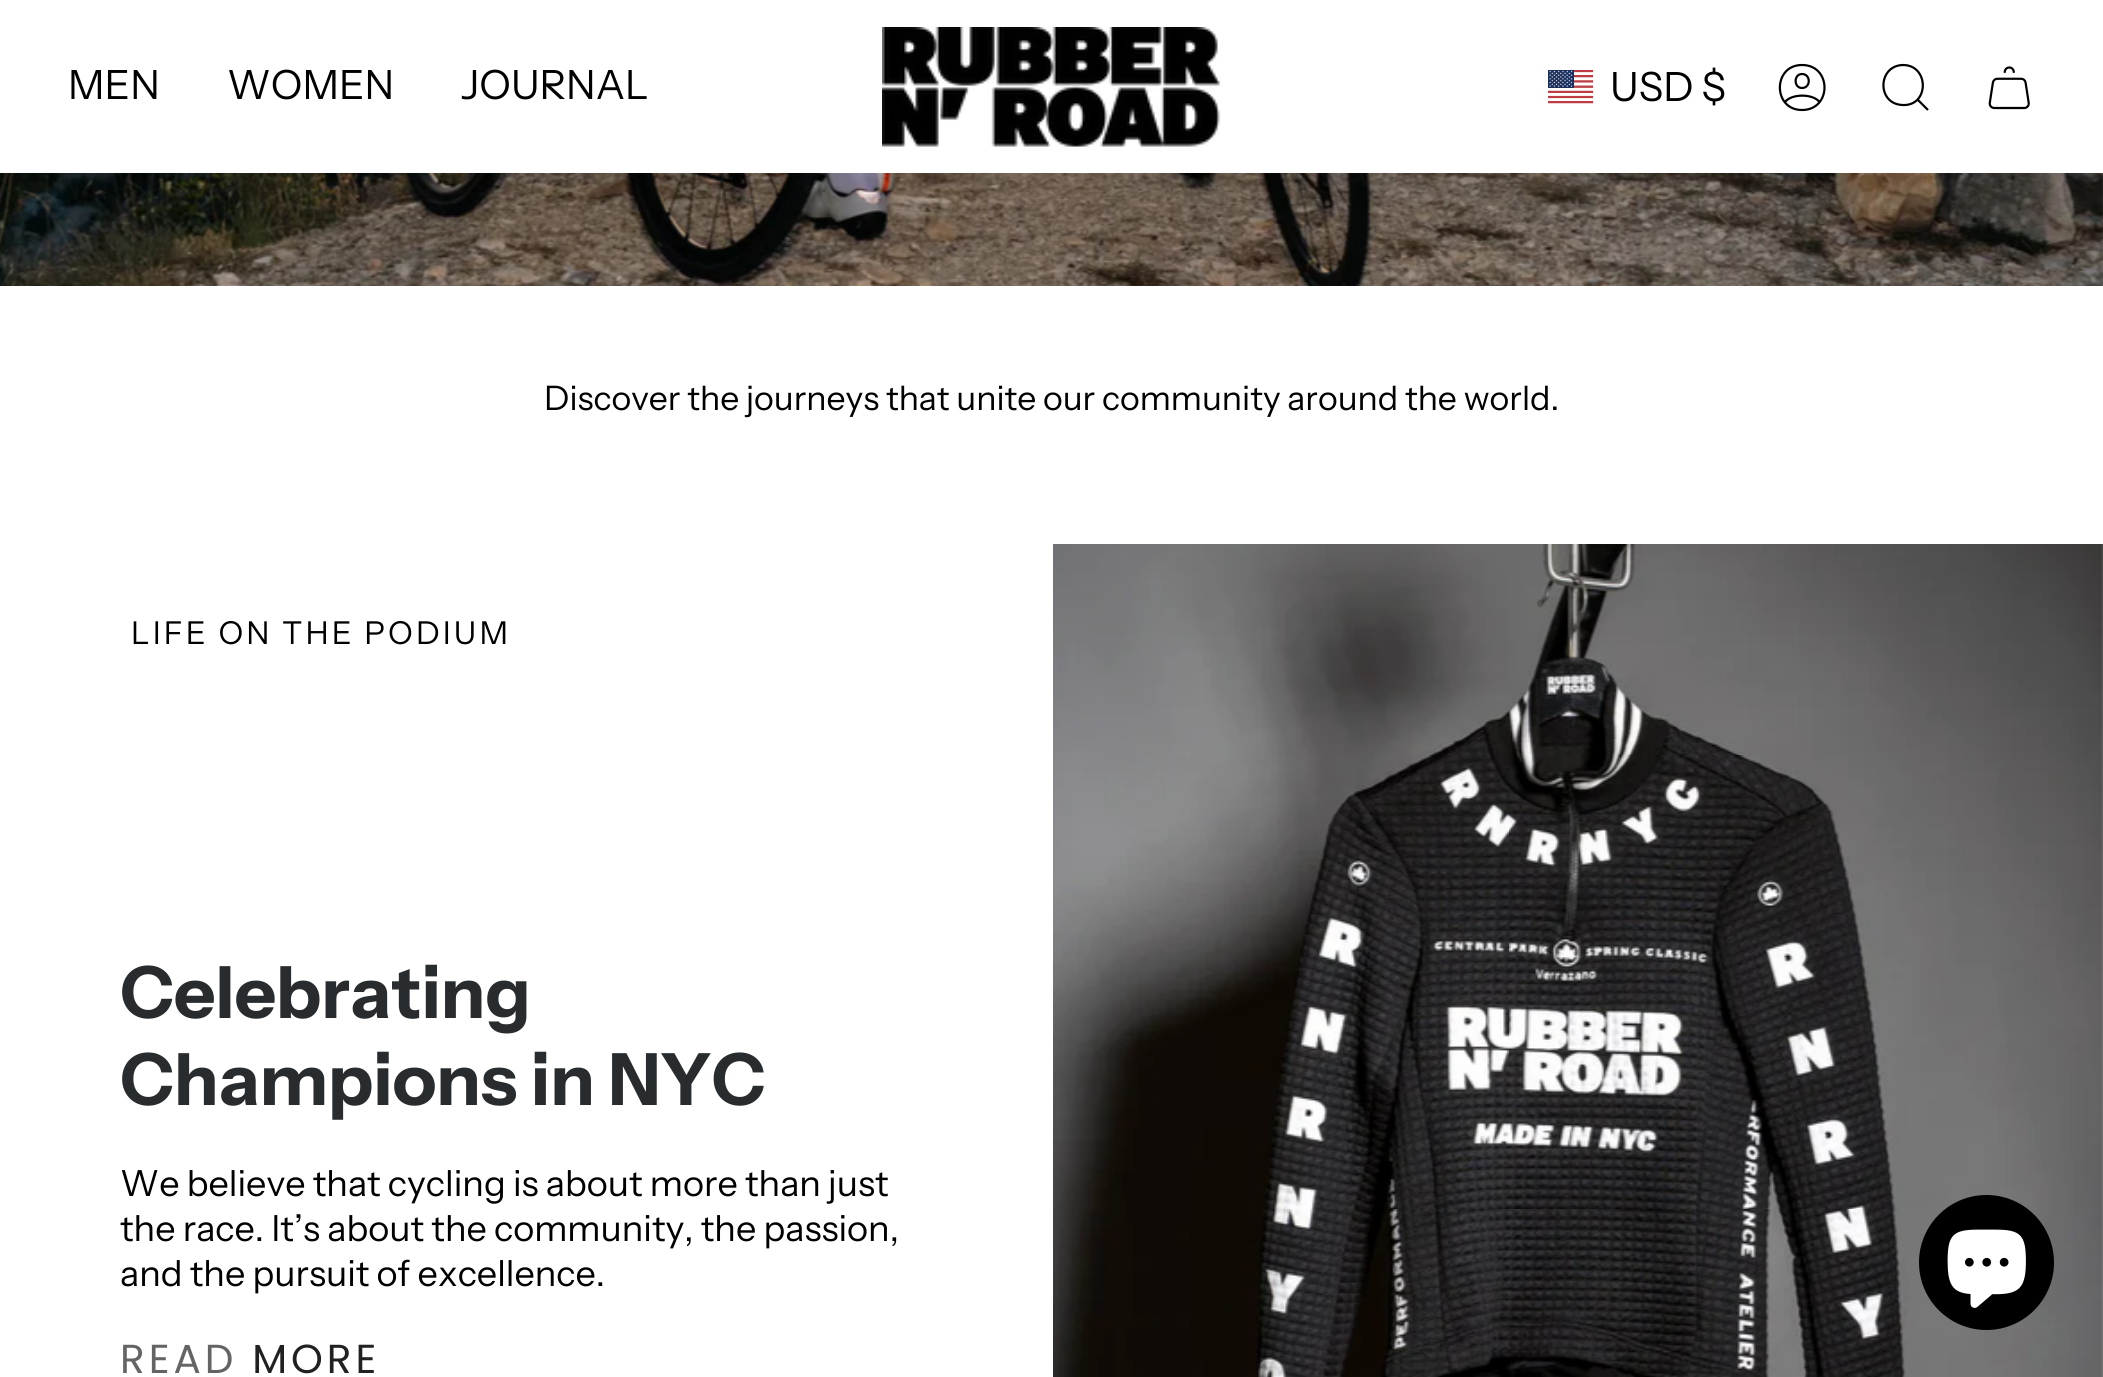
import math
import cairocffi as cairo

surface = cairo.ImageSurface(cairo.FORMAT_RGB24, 2103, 1377)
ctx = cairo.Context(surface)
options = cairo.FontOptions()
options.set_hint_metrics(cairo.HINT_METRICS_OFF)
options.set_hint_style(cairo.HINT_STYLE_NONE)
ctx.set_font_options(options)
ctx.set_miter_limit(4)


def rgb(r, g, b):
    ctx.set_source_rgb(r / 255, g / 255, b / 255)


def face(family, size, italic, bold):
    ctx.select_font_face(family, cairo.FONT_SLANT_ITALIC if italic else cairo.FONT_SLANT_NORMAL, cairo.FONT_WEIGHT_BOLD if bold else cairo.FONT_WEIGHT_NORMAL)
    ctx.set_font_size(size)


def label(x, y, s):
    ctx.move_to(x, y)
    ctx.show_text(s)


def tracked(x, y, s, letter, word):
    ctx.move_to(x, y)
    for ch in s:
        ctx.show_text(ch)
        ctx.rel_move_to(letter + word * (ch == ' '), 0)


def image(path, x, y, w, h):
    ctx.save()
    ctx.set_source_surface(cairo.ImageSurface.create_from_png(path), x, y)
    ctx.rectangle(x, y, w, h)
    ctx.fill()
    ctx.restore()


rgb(255, 255, 255)
ctx.paint()
face('Instrument Sans', 40.25, 0, 0)
rgb(0, 0, 0)
label(68, 99, 'MEN')
label(227, 99, 'WOMEN')
label(461, 99, 'JOURNAL')
image('image0.png', 882, 27, 339, 120)
image('image1.png', 1548, 70, 45, 34)
label(1610, 101, 'USD $')
ctx.new_path()
ctx.move_to(1802, 65)
ctx.curve_to(1772.5, 65, 1772.5, 110, 1802, 110)
ctx.curve_to(1832, 110, 1832, 65, 1802, 65)
ctx.close_path()
ctx.move_to(1785, 102)
ctx.curve_to(1791.5, 93.5, 1813, 93.5, 1819.5, 102)
ctx.move_to(1802, 88)
ctx.curve_to(1811, 88, 1811, 74, 1802, 74)
ctx.curve_to(1793.5, 74, 1793.5, 88, 1802, 88)
ctx.close_path()
ctx.set_line_width(2.2)
ctx.set_line_cap(cairo.LINE_CAP_ROUND)
ctx.set_line_join(cairo.LINE_JOIN_ROUND)
ctx.stroke()
ctx.new_path()
ctx.move_to(1903, 65)
ctx.curve_to(1929.5, 65, 1929.5, 106.5, 1902.5, 105)
ctx.curve_to(1876.5, 104, 1877.5, 65.5, 1903, 65)
ctx.close_path()
ctx.move_to(1917.5, 99.5)
ctx.line_to(1928, 110)
ctx.set_line_cap(cairo.LINE_CAP_BUTT)
ctx.set_line_join(cairo.LINE_JOIN_MITER)
ctx.stroke()
image('image2.png', 1988, 66, 42, 44)
image('image3.png', 0, 173, 2103, 113)
face('Instrument Sans', 33.75, 0, 0)
label(544, 410, 'Discover the journeys that unite our community around the world.')
face('Instrument Sans', 31.5, 0, 0)
tracked(131, 644, 'LIFE ON THE PODIUM', 3.1, 0)
face('Instrument Sans', 72, 0, 1)
rgb(40, 44, 46)
label(120, 1018, 'Celebrating')
label(120, 1105, 'Champions in NYC')
face('Instrument Sans', 36, 0, 0)
rgb(0, 0, 0)
label(120, 1196, 'We believe that cycling is about more than just')
label(120, 1241, 'the race. It’s about the community, the passion,')
label(120, 1286, 'and the pursuit of excellence.')
face('Poppins', 40.5, 0, 0)
gradient = cairo.LinearGradient(120, 1360, 381, 1360)
gradient.add_color_stop_rgba(0, 0.392, 0.392, 0.392, 1)
gradient.add_color_stop_rgba(0.5, 0.392, 0.392, 0.392, 1)
gradient.add_color_stop_rgba(0.5, 0.129, 0.129, 0.129, 1)
gradient.add_color_stop_rgba(1, 0.129, 0.129, 0.129, 1)
ctx.set_source(gradient)
tracked(120, 1373, 'READ MORE', 4, 0)
image('image4.png', 1053, 544, 1050, 833)
rgb(0, 0, 0)
ctx.arc(1986.5, 1262.5, 67.5, 0, 2 * math.pi)
ctx.fill()
image('image5.png', 1947, 1229, 79, 79)
surface.write_to_png('render.png')
